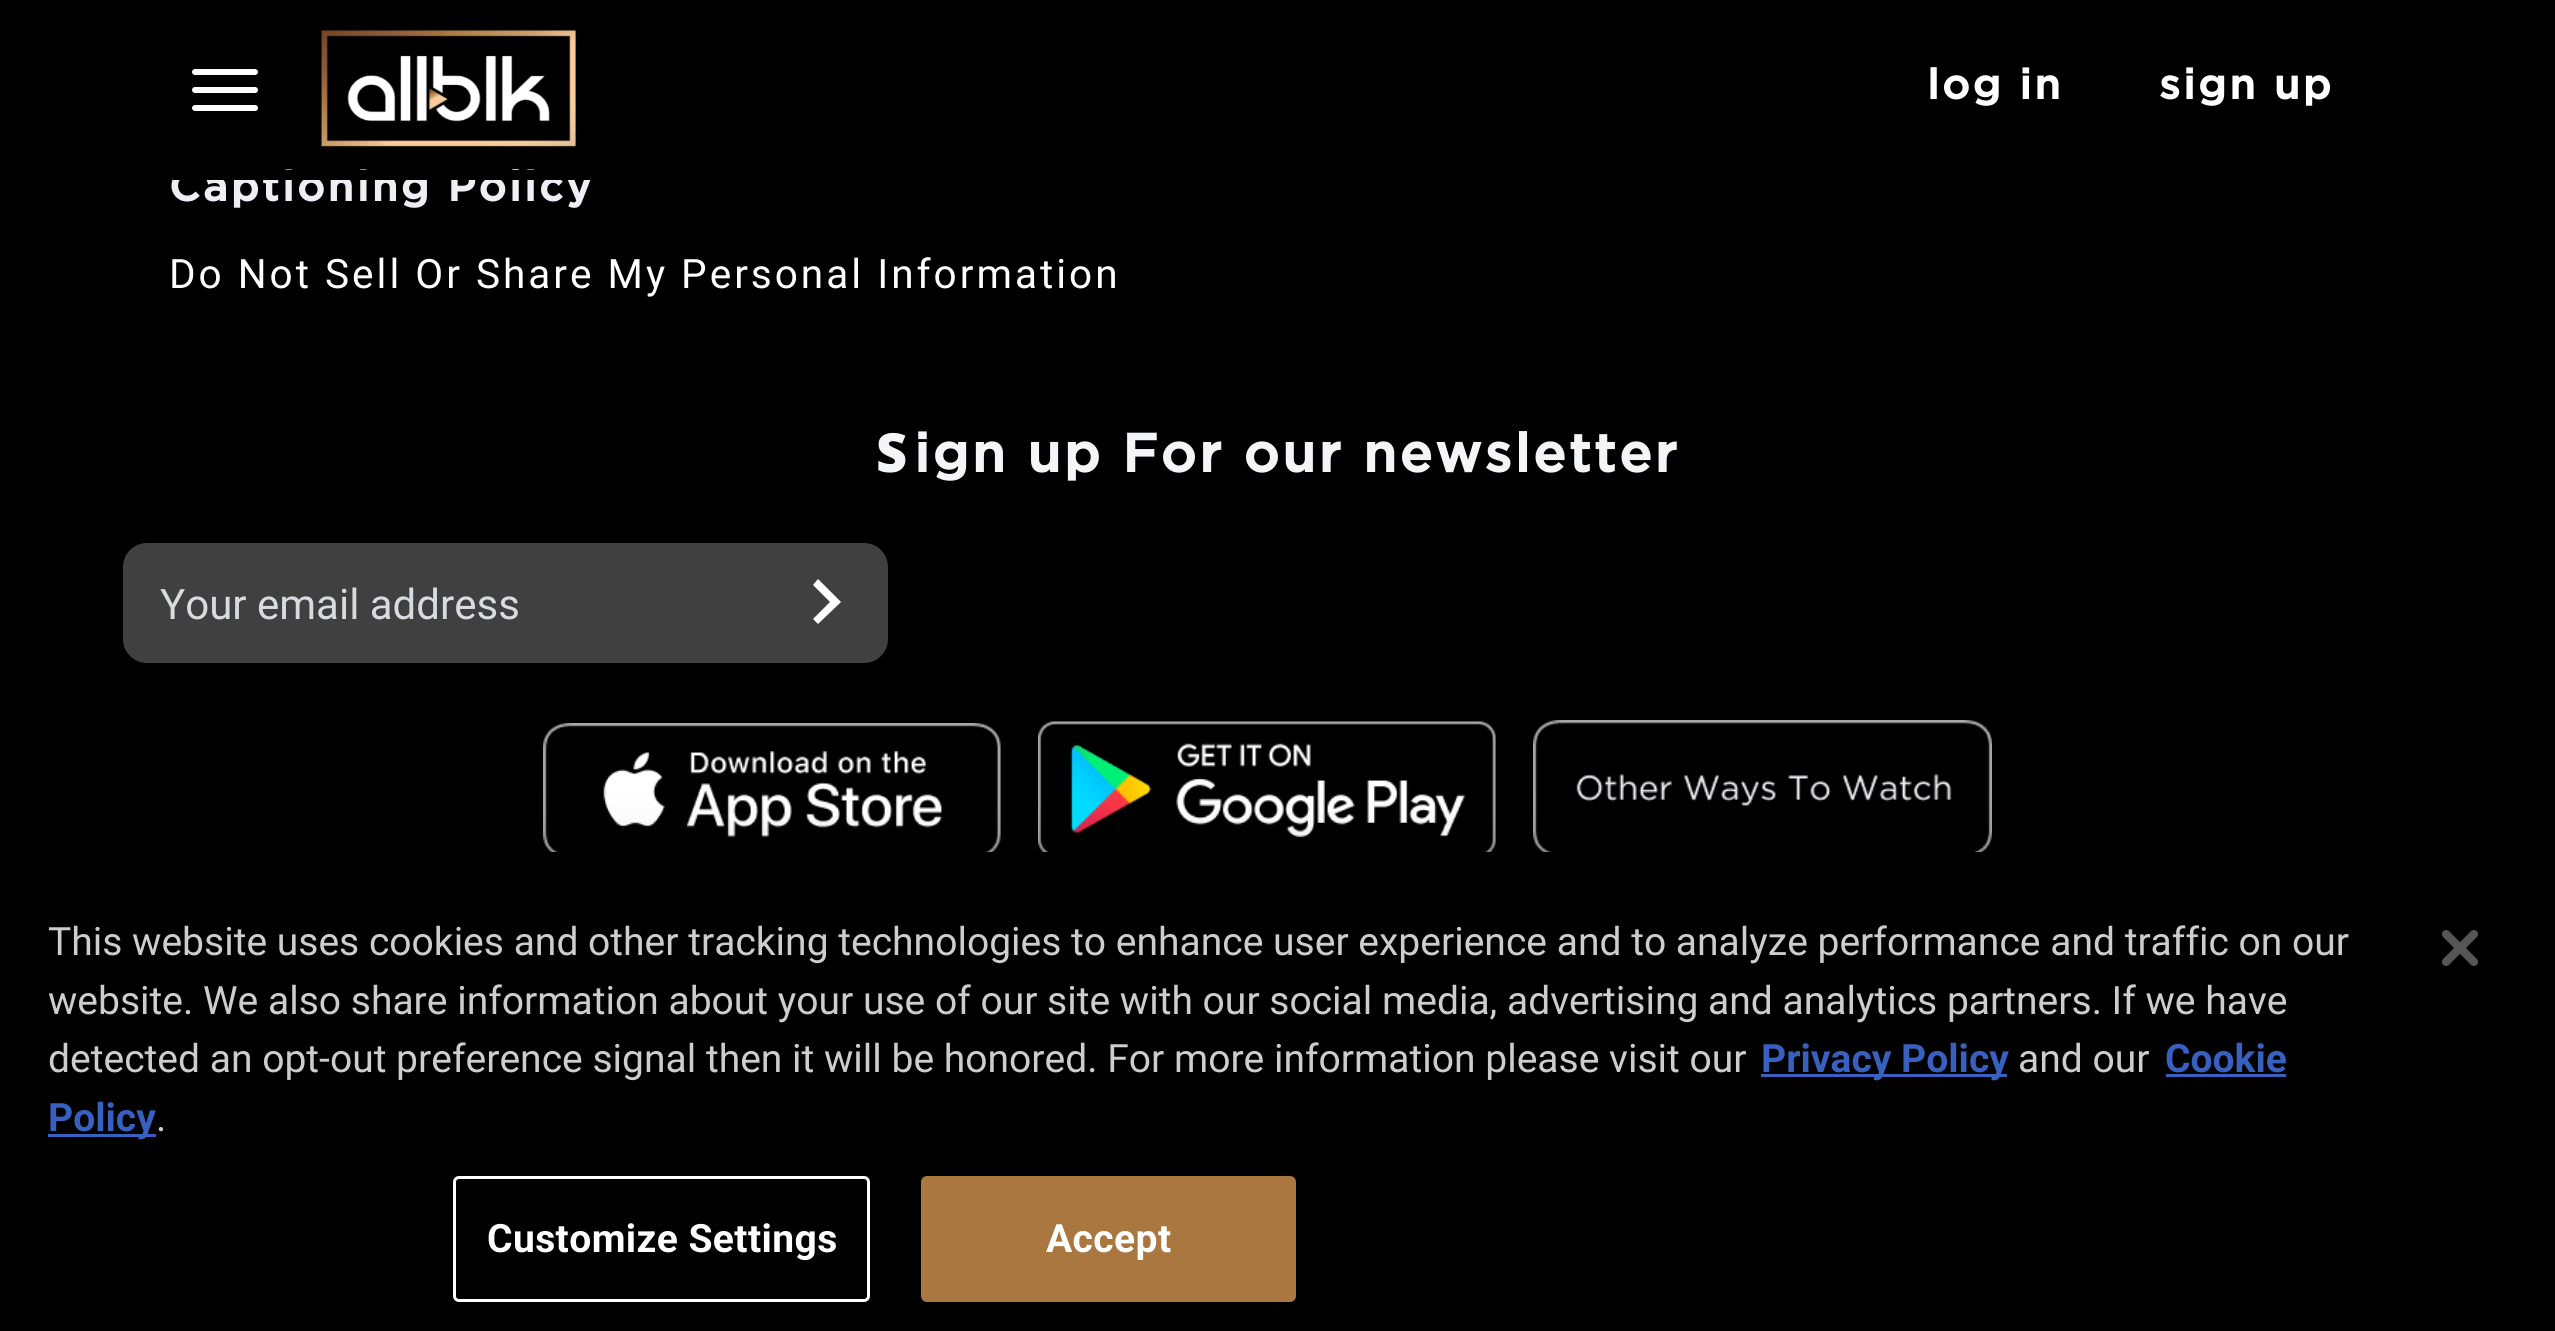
import math
import cairocffi as cairo

surface = cairo.ImageSurface(cairo.FORMAT_RGB24, 2555, 1331)
ctx = cairo.Context(surface)
options = cairo.FontOptions()
options.set_hint_metrics(cairo.HINT_METRICS_OFF)
options.set_hint_style(cairo.HINT_STYLE_NONE)
ctx.set_font_options(options)
ctx.set_miter_limit(4)


def rgb(r, g, b):
    ctx.set_source_rgb(r / 255, g / 255, b / 255)


def face(family, size, italic, bold):
    ctx.select_font_face(family, cairo.FONT_SLANT_ITALIC if italic else cairo.FONT_SLANT_NORMAL, cairo.FONT_WEIGHT_BOLD if bold else cairo.FONT_WEIGHT_NORMAL)
    ctx.set_font_size(size)


def label(x, y, s):
    ctx.move_to(x, y)
    ctx.show_text(s)


def tracked(x, y, s, letter, word):
    ctx.move_to(x, y)
    for ch in s:
        ctx.show_text(ch)
        ctx.rel_move_to(letter + word * (ch == ' '), 0)


def rect(x, y, w, h):
    ctx.rectangle(x, y, w, h)
    ctx.fill()


def rrect(x, y, w, h, r):
    ctx.new_sub_path()
    for i, (u, v) in enumerate([(x + w - r, y + h - r), (x + r, y + h - r), (x + r, y + r), (x + w - r, y + r)]):
        ctx.arc(u, v, r, i * math.pi / 2, (i + 1) * math.pi / 2)
    ctx.close_path()


def soft_shadow(x, y, w, h, r, blur, alpha):
    ctx.push_group_with_content(cairo.CONTENT_ALPHA)
    ctx.set_operator(cairo.OPERATOR_SOURCE)
    for i in range(15, -16, -2):
        e = blur * i / 6
        if min(w, h) + 2 * e > 0:
            ctx.set_source_rgba(0, 0, 0, alpha * math.erfc((i - 1) / 8.5) / 2)
            rrect(x - e, y - e, w + 2 * e, h + 2 * e, max(0, min(r + e + blur * .6, min(w, h) / 2 + e)))
            ctx.fill()
    ctx.mask(ctx.pop_group())


def image(path, x, y, w, h):
    ctx.save()
    ctx.set_source_surface(cairo.ImageSurface.create_from_png(path), x, y)
    ctx.rectangle(x, y, w, h)
    ctx.fill()
    ctx.restore()


rgb(0, 0, 0)
ctx.paint()
face('Gotham', 42, 0, 1)
rgb(238, 239, 244)
tracked(169, 201, 'Captioning Policy', 3, 0)
rgb(0, 0, 0)
rect(173, 170, 418, 10)
rgb(255, 255, 255)
rrect(192, 69, 66, 6, 3)
ctx.fill()
rrect(192, 87, 66, 6, 3)
ctx.fill()
rrect(192, 105, 66, 6, 3)
ctx.fill()
image('image0.png', 320, 30, 256, 117)
tracked(1927, 99, 'log in', 3, 0)
tracked(2159, 99, 'sign up', 3, 0)
face('Roboto', 40.5, 0, 0)
tracked(169, 288, 'Do Not Sell Or Share My Personal Information', 3, 0)
face('Noto Sans Black', 54, 0, 0)
rgb(244, 245, 247)
tracked(876, 472, 'S', 3, 0)
face('Gotham', 54, 0, 1)
tracked(914, 472, 'ign up For our newsletter', 3, 0)
rgb(64, 64, 64)
rrect(123, 543, 765, 120, 24)
ctx.fill()
face('Roboto', 42, 0, 0)
rgb(217, 219, 225)
label(160, 619, 'Your email address')
rgb(255, 255, 255)
ctx.new_path()
ctx.move_to(818, 579)
ctx.line_to(813, 585)
ctx.line_to(830, 602)
ctx.line_to(813, 619)
ctx.line_to(818, 624)
ctx.line_to(841, 602)
ctx.close_path()
ctx.fill()
image('image1.png', 543, 723, 458, 129)
image('image2.png', 1038, 721, 458, 131)
image('image3.png', 1533, 720, 459, 132)
rgb(0, 0, 0)
soft_shadow(0, 852, 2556, 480, 0, 27, 0.2)
face('Roboto', 39.02, 0, 0)
rgb(205, 205, 205)
label(48, 955, 'This website uses cookies and other tracking technologies to enhance user experience and to analyze performance and traffic on our')
label(48, 1014, 'website. We also share information about your use of our site with our social media, advertising and analytics partners. If we have')
label(48, 1072, 'detected an opt-out preference signal then it will be honored. For more information please visit our')
rgb(56, 96, 190)
rect(1761, 1074, 246, 3)
face('Roboto', 39.02, 0, 1)
label(1761, 1072, 'Privacy Policy')
face('Roboto', 39.02, 0, 0)
rgb(205, 205, 205)
label(2018, 1072, 'and our')
face('Roboto', 39.02, 0, 1)
rgb(56, 96, 190)
label(2165, 1072, 'Cookie')
rect(2166, 1074, 120, 3)
rect(48, 1134, 108, 3)
label(48, 1131, 'Policy')
face('Roboto', 39.02, 0, 0)
rgb(205, 205, 205)
label(156, 1131, '.')
rrect(454.5, 1177.5, 414, 123, 4.5)
rgb(255, 255, 255)
ctx.set_line_width(3)
ctx.stroke()
face('Roboto', 39.02, 0, 1)
tracked(487, 1252, 'Customize Settings', 0.4, 0)
rgb(169, 119, 63)
rrect(922.5, 1177.5, 372, 123, 4.5)
ctx.fill_preserve()
ctx.stroke()
rgb(255, 255, 255)
tracked(1046, 1252, 'Accept', 0.4, 0)
image('image4.png', 2442, 930, 36, 36)
surface.write_to_png('render.png')
